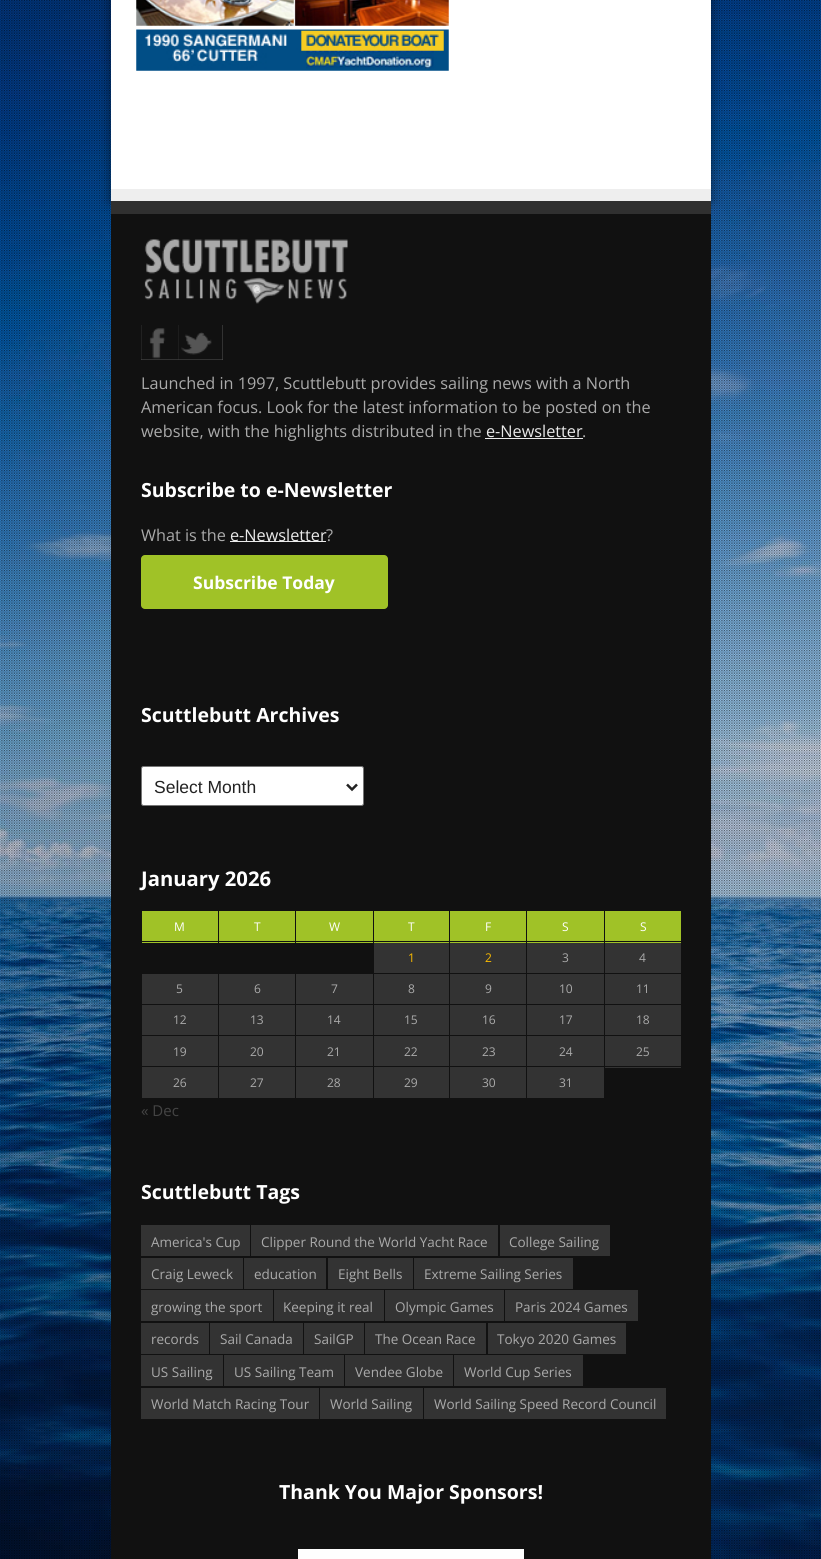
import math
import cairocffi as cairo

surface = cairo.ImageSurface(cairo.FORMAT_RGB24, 821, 1559)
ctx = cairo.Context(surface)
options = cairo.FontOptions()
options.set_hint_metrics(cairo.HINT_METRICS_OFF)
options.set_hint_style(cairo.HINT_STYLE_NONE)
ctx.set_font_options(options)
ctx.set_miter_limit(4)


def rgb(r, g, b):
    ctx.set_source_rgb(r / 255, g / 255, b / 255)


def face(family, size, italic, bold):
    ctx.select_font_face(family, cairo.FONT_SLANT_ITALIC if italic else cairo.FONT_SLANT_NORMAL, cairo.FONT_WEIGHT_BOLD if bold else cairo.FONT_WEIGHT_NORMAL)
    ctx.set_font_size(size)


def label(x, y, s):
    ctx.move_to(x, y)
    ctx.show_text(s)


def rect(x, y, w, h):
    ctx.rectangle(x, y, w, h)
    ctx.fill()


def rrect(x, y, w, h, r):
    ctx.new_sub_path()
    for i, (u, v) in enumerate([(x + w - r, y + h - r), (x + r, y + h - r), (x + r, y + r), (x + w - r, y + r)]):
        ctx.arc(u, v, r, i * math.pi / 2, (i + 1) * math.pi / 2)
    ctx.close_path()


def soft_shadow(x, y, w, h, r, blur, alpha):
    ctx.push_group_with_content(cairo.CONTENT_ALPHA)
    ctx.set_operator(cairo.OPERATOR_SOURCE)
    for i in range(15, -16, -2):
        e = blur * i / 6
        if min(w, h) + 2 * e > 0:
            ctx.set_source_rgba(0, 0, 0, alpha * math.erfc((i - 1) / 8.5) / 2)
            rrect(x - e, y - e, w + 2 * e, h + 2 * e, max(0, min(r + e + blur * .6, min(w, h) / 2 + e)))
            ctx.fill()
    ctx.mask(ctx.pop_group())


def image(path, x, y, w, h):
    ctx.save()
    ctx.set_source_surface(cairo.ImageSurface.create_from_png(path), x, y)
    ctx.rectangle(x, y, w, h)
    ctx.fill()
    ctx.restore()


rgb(255, 255, 255)
ctx.paint()
image('image0.png', 0, 0, 821, 1559)
image('image2.png', 0, 896, 821, 279)
image('image1.png', 0, 0, 821, 1559)
rgb(0, 0, 0)
soft_shadow(111, -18, 600, 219, 0, 6, 0.5)
rgb(255, 255, 255)
rect(111, 0, 600, 201)
image('image3.png', 136, 0, 313, 71)
rgb(17, 17, 17)
rect(111, 201, 600, 1358)
ctx.set_source_rgba(0.667, 0.667, 0.667, 0.2)
rect(111, 189, 600, 25)
image('image4.png', 144, 239, 204, 65)
rgb(85, 85, 85)
rect(141, 325, 82, 35)
image('image5.png', 141, 325, 38, 35)
image('image6.png', 178, 325, 45, 35)
face('Open Sans', 16.25, 0, 0)
rgb(170, 170, 170)
label(141, 389, 'Launched in 1997, Scuttlebutt provides sailing news with a North')
label(141, 413, 'American focus. Look for the latest information to be posted on the')
label(141, 437, 'website, with the highlights distributed in the')
rgb(234, 234, 234)
label(486, 437, 'e-Newsletter')
rgb(170, 170, 170)
label(582, 437, '.')
rgb(234, 234, 234)
rect(485, 438, 98, 1)
face('Open Sans', 19.5, 0, 1)
rgb(255, 255, 255)
label(141, 497, 'Subscribe to e-Newsletter')
face('Open Sans', 16.25, 0, 0)
rgb(170, 170, 170)
label(141, 541, 'What is the')
rgb(234, 234, 234)
rect(230, 541, 96, 1)
label(230, 541, 'e-Newsletter')
rgb(170, 170, 170)
label(326, 541, '?')
rgb(160, 194, 39)
rrect(141, 555, 247, 54, 4)
ctx.fill()
face('Open Sans', 17.5, 0, 1)
rgb(255, 255, 255)
label(193, 589, 'Subscribe Today')
face('Open Sans', 19.5, 0, 1)
label(141, 722, 'Scuttlebutt Archives')
rrect(141.5, 766.5, 222, 39, 2)
ctx.fill_preserve()
rgb(118, 118, 118)
ctx.set_line_width(1)
ctx.stroke()
ctx.new_path()
ctx.move_to(347, 784.5)
ctx.line_to(352, 789.5)
ctx.line_to(357, 784.5)
rgb(34, 34, 34)
ctx.set_line_width(2.5)
ctx.stroke()
face('Liberation Sans', 17.5, 0, 0)
label(154, 793, 'Select Month')
face('Open Sans', 20.25, 0, 1)
rgb(255, 255, 255)
label(141, 886, 'January 2026')
rgb(160, 194, 39)
rect(142, 911, 76, 32)
face('Open Sans', 12, 0, 0)
rgb(255, 255, 255)
label(174, 931, 'M')
rgb(160, 194, 39)
rect(219, 911, 76, 32)
rgb(255, 255, 255)
label(254, 931, 'T')
rgb(160, 194, 39)
rect(296, 911, 77, 32)
rgb(255, 255, 255)
label(329, 931, 'W')
rgb(160, 194, 39)
rect(374, 911, 75, 32)
rgb(255, 255, 255)
label(408, 931, 'T')
rgb(160, 194, 39)
rect(450, 911, 154, 32)
rgb(255, 255, 255)
label(485, 931, 'F')
rgb(51, 51, 51)
rect(450, 943, 154, 30)
rgb(160, 194, 39)
rect(605, 911, 76, 32)
rgb(17, 17, 17)
rect(526, 941, 157, 1)
rgb(51, 51, 51)
rect(450, 974, 154, 30)
rect(450, 1005, 154, 30)
rect(450, 1036, 154, 32)
rect(605, 1036, 76, 32)
rgb(17, 17, 17)
rect(526, 1066, 157, 1)
rgb(51, 51, 51)
rect(142, 1036, 76, 62)
rect(219, 1036, 76, 62)
rect(296, 1036, 77, 62)
rect(374, 1036, 75, 62)
rect(450, 1068, 154, 30)
rgb(17, 17, 17)
rect(526, 1066, 1, 33)
rect(141, 1066, 387, 1)
rect(526, 973, 1, 95)
rect(526, 941, 1, 33)
rect(141, 941, 387, 1)
rect(526, 910, 1, 33)
rgb(255, 255, 255)
label(562, 931, 'S')
label(640, 931, 'S')
rgb(51, 51, 51)
rect(374, 943, 75, 30)
rgb(249, 186, 0)
label(408, 962, '1')
label(485, 962, '2')
rgb(170, 170, 170)
label(562, 962, '3')
rgb(51, 51, 51)
rect(605, 943, 76, 30)
rgb(170, 170, 170)
label(639, 962, '4')
rgb(51, 51, 51)
rect(142, 974, 76, 30)
rgb(170, 170, 170)
label(176, 993, '5')
rgb(51, 51, 51)
rect(219, 974, 76, 30)
rgb(170, 170, 170)
label(254, 993, '6')
rgb(51, 51, 51)
rect(296, 974, 77, 30)
rgb(170, 170, 170)
label(331, 993, '7')
rgb(51, 51, 51)
rect(374, 974, 75, 30)
rgb(170, 170, 170)
label(408, 993, '8')
label(485, 993, '9')
label(559, 993, '10')
rgb(51, 51, 51)
rect(605, 974, 76, 30)
rgb(170, 170, 170)
label(636, 993, '11')
rgb(51, 51, 51)
rect(142, 1005, 76, 30)
rgb(170, 170, 170)
label(173, 1024, '12')
rgb(51, 51, 51)
rect(219, 1005, 76, 30)
rgb(170, 170, 170)
label(250, 1024, '13')
rgb(51, 51, 51)
rect(296, 1005, 77, 30)
rgb(170, 170, 170)
label(327, 1024, '14')
rgb(51, 51, 51)
rect(374, 1005, 75, 30)
rgb(170, 170, 170)
label(404, 1024, '15')
label(482, 1024, '16')
label(559, 1024, '17')
rgb(51, 51, 51)
rect(605, 1005, 76, 30)
rgb(170, 170, 170)
label(636, 1024, '18')
label(173, 1056, '19')
label(250, 1056, '20')
label(327, 1056, '21')
label(404, 1056, '22')
label(482, 1056, '23')
label(559, 1056, '24')
label(636, 1056, '25')
label(173, 1087, '26')
label(250, 1087, '27')
label(327, 1087, '28')
label(404, 1087, '29')
label(482, 1087, '30')
label(559, 1087, '31')
face('Open Sans', 15, 0, 0)
rgb(68, 68, 68)
label(141, 1116, '« Dec')
face('Open Sans', 19.5, 0, 1)
rgb(255, 255, 255)
label(141, 1199, 'Scuttlebutt Tags')
rgb(51, 51, 51)
rect(141, 1225, 109, 31)
face('Open Sans', 13.5, 0, 0)
rgb(170, 170, 170)
label(151, 1247, 'America\'s Cup')
rgb(51, 51, 51)
rect(251, 1225, 247, 31)
rgb(170, 170, 170)
label(261, 1247, 'Clipper Round the World Yacht Race')
rgb(51, 51, 51)
rect(500, 1225, 110, 31)
rgb(170, 170, 170)
label(509, 1247, 'College Sailing')
rgb(51, 51, 51)
rect(141, 1258, 102, 31)
rgb(170, 170, 170)
label(151, 1279, 'Craig Leweck')
rgb(51, 51, 51)
rect(244, 1258, 82, 31)
rgb(170, 170, 170)
label(254, 1279, 'education')
rgb(51, 51, 51)
rect(328, 1258, 85, 31)
rgb(170, 170, 170)
label(338, 1279, 'Eight Bells')
rgb(51, 51, 51)
rect(414, 1258, 159, 31)
rgb(170, 170, 170)
label(424, 1279, 'Extreme Sailing Series')
rgb(51, 51, 51)
rect(141, 1290, 132, 31)
rgb(170, 170, 170)
label(151, 1312, 'growing the sport')
rgb(51, 51, 51)
rect(274, 1290, 110, 31)
rgb(170, 170, 170)
label(283, 1312, 'Keeping it real')
rgb(51, 51, 51)
rect(385, 1290, 119, 31)
rgb(170, 170, 170)
label(395, 1312, 'Olympic Games')
rgb(51, 51, 51)
rect(505, 1290, 133, 31)
rgb(170, 170, 170)
label(515, 1312, 'Paris 2024 Games')
rgb(51, 51, 51)
rect(141, 1323, 68, 31)
rgb(170, 170, 170)
label(151, 1344, 'records')
rgb(51, 51, 51)
rect(210, 1323, 93, 31)
rgb(170, 170, 170)
label(220, 1344, 'Sail Canada')
rgb(51, 51, 51)
rect(304, 1323, 60, 31)
rgb(170, 170, 170)
label(314, 1344, 'SailGP')
rgb(51, 51, 51)
rect(365, 1323, 121, 31)
rgb(170, 170, 170)
label(375, 1344, 'The Ocean Race')
rgb(51, 51, 51)
rect(488, 1323, 138, 31)
rgb(170, 170, 170)
label(497, 1344, 'Tokyo 2020 Games')
rgb(51, 51, 51)
rect(141, 1355, 82, 31)
rgb(170, 170, 170)
label(151, 1377, 'US Sailing')
rgb(51, 51, 51)
rect(224, 1355, 120, 31)
rgb(170, 170, 170)
label(234, 1377, 'US Sailing Team')
rgb(51, 51, 51)
rect(345, 1355, 108, 31)
rgb(170, 170, 170)
label(355, 1377, 'Vendee Globe')
rgb(51, 51, 51)
rect(454, 1355, 129, 31)
rgb(170, 170, 170)
label(464, 1377, 'World Cup Series')
rgb(51, 51, 51)
rect(141, 1388, 178, 31)
rgb(170, 170, 170)
label(151, 1409, 'World Match Racing Tour')
rgb(51, 51, 51)
rect(320, 1388, 103, 31)
rgb(170, 170, 170)
label(330, 1409, 'World Sailing')
rgb(51, 51, 51)
rect(424, 1388, 242, 31)
rgb(170, 170, 170)
label(434, 1409, 'World Sailing Speed Record Council')
face('Open Sans', 19.5, 0, 1)
rgb(255, 255, 255)
label(279, 1499, 'Thank You Major Sponsors!')
rgb(254, 254, 254)
rect(298, 1549, 226, 10)
surface.write_to_png('render.png')
